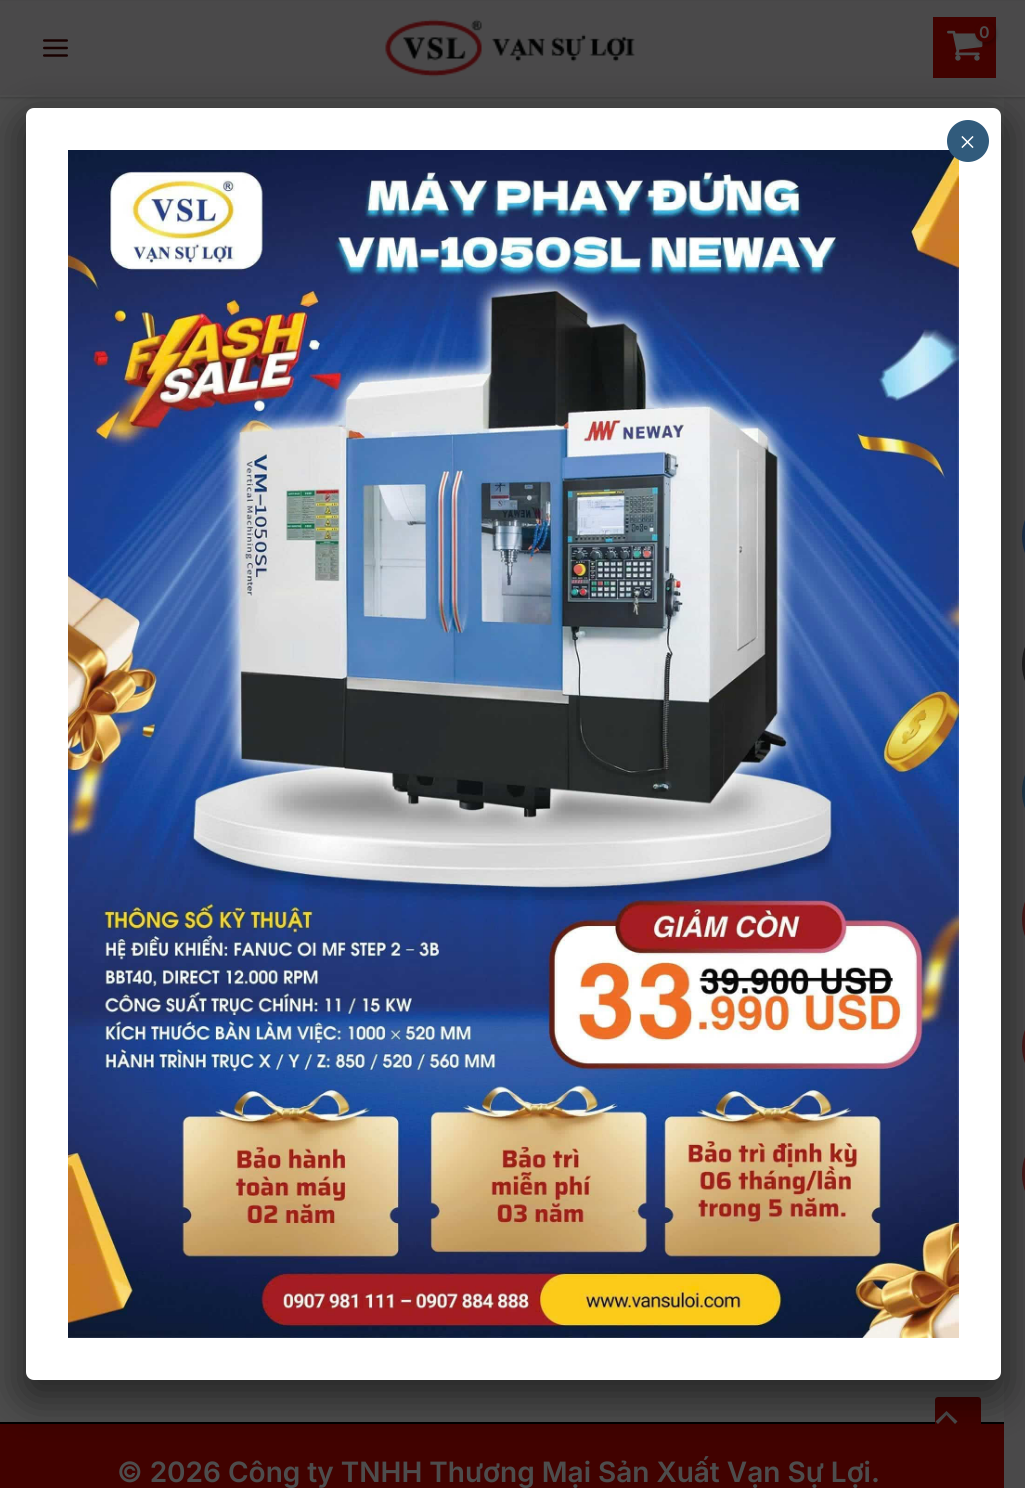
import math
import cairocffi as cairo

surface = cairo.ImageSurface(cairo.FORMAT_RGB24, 1025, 1488)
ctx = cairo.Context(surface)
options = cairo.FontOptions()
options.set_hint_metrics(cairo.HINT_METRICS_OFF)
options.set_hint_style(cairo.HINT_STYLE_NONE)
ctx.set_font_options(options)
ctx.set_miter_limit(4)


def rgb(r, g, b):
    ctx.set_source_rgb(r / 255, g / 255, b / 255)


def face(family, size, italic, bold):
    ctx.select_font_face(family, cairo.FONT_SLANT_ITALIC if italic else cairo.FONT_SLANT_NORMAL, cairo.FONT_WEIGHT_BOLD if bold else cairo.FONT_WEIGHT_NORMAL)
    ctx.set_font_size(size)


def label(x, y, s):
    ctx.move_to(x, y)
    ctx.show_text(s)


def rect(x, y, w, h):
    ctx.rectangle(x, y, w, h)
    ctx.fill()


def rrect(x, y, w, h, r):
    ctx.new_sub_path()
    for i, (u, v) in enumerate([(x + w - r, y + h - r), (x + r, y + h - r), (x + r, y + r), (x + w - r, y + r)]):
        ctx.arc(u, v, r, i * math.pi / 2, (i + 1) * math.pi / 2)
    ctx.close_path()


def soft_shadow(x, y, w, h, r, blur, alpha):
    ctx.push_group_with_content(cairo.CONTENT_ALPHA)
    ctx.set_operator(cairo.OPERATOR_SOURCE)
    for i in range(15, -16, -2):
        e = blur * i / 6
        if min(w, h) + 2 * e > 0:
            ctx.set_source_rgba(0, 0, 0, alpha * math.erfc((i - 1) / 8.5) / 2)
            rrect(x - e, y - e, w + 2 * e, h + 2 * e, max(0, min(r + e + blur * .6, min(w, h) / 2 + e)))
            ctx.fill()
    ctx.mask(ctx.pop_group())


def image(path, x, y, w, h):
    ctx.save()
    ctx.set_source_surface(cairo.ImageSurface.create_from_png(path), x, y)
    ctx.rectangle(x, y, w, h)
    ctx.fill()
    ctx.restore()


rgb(74, 73, 74)
ctx.paint()
rgb(77, 77, 77)
rect(0, 97, 1004, 1325)
rgb(0, 0, 0)
soft_shadow(0, 2, 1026, 96, 0, 1.5, 0.2)
rgb(74, 73, 74)
rect(0, 1, 1025, 94)
rgb(77, 77, 77)
rect(0, 95, 1025, 2)
image('image0.png', 385, 19, 250, 58)
rgb(65, 2, 0)
rect(933, 17, 63, 61)
image('image1.png', 947, 30, 36, 31)
rgb(0, 0, 0)
soft_shadow(977, 24, 19, 20, 9.5, 2, 0.3)
rgb(65, 2, 0)
rrect(975, 23, 20, 19, 9.5)
ctx.fill()
face('Inter SemiBold', 16, 0, 0)
rgb(77, 77, 77)
label(979, 38, '0')
image('image2.png', 43, 39, 25, 18)
rgb(65, 2, 0)
rect(0, 1424, 1004, 64)
rgb(0, 0, 0)
rect(0, 1422, 1004, 2)
face('Inter SemiBold', 28, 0, 0)
rgb(77, 77, 77)
label(117, 1482, '© 2026 Công ty TNHH Thương Mại Sản Xuất Vạn Sự Lợi.')
rgb(27, 47, 73)
rrect(1022, 488, 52, 97, 48.5)
ctx.fill()
rgb(30, 29, 30)
rrect(1022, 615, 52, 98, 48.5)
ctx.fill()
rgb(29, 53, 73)
rrect(1022, 743, 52, 97, 48.5)
ctx.fill()
rgb(71, 24, 24)
rrect(1022, 870, 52, 98, 48.5)
ctx.fill()
rrect(1022, 998, 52, 97, 48.5)
ctx.fill()
rrect(1022, 1125, 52, 98, 48.5)
ctx.fill()
rgb(65, 2, 0)
rrect(935, 1397, 46, 46, 3)
ctx.fill()
rgb(77, 77, 77)
ctx.new_path()
ctx.move_to(957.5, 1421.5)
ctx.line_to(946.5, 1411)
ctx.line_to(935.5, 1421.5)
ctx.line_to(938, 1424)
ctx.line_to(946.5, 1415)
ctx.line_to(955, 1424)
ctx.close_path()
ctx.fill()
rgb(2, 2, 2)
soft_shadow(20, 117, 987, 1284, 14, 19, 0.5)
rgb(255, 255, 255)
rrect(26, 108, 975, 1272, 8)
ctx.fill()
image('image3.png', 68, 150, 891, 1188)
rgb(49, 91, 124)
ctx.arc(968, 141, 21, 0, 2 * math.pi)
ctx.fill()
face('Liberation Serif', 30, 0, 0)
rgb(255, 255, 255)
label(959, 152, '×')
surface.write_to_png('render.png')
